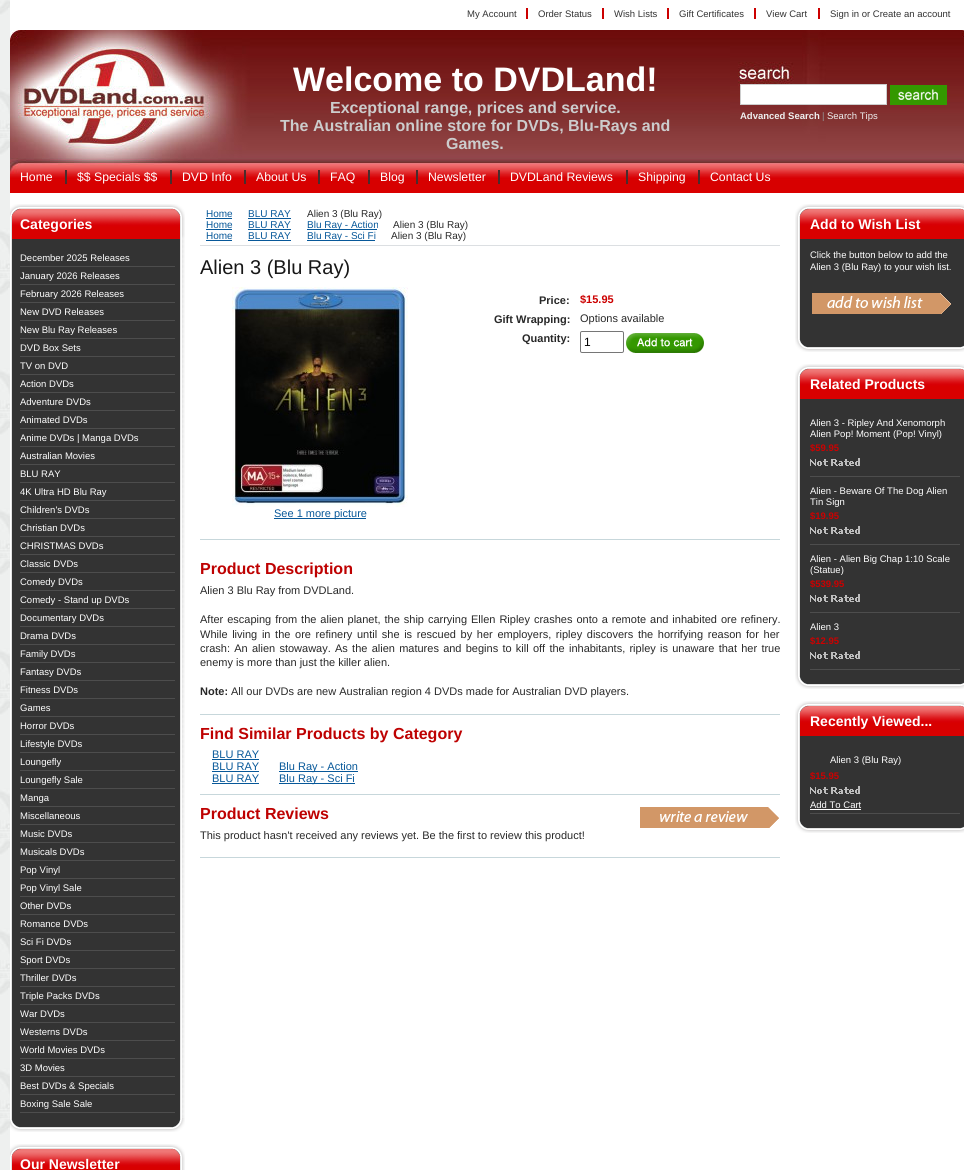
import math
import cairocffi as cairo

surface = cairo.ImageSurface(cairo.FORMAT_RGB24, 964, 1170)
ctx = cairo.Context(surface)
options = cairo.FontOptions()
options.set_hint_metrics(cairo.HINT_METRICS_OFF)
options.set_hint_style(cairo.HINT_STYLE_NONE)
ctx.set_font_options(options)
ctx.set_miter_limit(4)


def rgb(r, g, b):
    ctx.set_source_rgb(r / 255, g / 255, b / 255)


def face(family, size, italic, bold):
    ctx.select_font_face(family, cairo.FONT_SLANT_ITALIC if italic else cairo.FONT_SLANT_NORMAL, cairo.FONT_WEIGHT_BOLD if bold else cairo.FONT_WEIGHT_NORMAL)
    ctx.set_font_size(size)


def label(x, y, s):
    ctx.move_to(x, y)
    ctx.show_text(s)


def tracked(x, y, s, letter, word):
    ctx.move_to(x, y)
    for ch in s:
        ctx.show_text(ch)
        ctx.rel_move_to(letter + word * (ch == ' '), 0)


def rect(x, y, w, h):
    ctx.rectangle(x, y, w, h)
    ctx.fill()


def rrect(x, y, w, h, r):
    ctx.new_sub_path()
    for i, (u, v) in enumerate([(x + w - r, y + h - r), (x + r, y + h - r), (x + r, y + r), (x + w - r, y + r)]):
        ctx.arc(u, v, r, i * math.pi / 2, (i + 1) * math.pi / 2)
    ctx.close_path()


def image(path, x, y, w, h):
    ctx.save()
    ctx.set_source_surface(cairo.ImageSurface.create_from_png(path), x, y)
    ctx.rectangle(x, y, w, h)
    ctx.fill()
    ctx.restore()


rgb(255, 255, 255)
ctx.paint()
image('image0.png', 0, 0, 10, 1170)
rgb(204, 0, 0)
rect(526, 8, 2, 11)
face('Liberation Sans', 9.5, 0, 0)
rgb(51, 51, 51)
label(467, 17, 'My Account')
rgb(204, 0, 0)
rect(602, 8, 2, 11)
rgb(51, 51, 51)
label(538, 17, 'Order Status')
rgb(204, 0, 0)
rect(667, 8, 2, 11)
rgb(51, 51, 51)
label(614, 17, 'Wish Lists')
rgb(204, 0, 0)
rect(754, 8, 2, 11)
rgb(51, 51, 51)
label(679, 17, 'Gift Certificates')
rgb(204, 0, 0)
rect(818, 8, 2, 11)
rgb(51, 51, 51)
label(766, 17, 'View Cart')
label(830, 17, 'Sign in or Create an account')
image('image1.png', 10, 30, 954, 163)
face('Liberation Sans', 34, 0, 1)
rgb(255, 255, 255)
label(293, 91, 'Welcome to DVDLand!')
face('Liberation Sans', 16, 0, 1)
rgb(204, 204, 204)
label(330, 113, 'Exceptional range, prices and service.')
label(280, 131, 'The Australian online store for DVDs, Blu-Rays and')
label(446, 149, 'Games.')
rgb(255, 255, 255)
ctx.rectangle(740.5, 84.5, 146, 20)
ctx.fill_preserve()
rgb(205, 205, 205)
ctx.set_line_width(1)
ctx.stroke()
image('image2.png', 890, 85, 57, 20)
face('Liberation Sans', 9.5, 0, 1)
rgb(238, 239, 239)
label(740, 119, 'Advanced Search')
face('Liberation Sans', 9.5, 0, 0)
rgb(148, 148, 148)
label(822, 119, '|')
rgb(238, 239, 239)
label(827, 119, 'Search Tips')
face('Liberation Sans', 12.25, 0, 0)
rgb(255, 255, 255)
label(20, 181, 'Home')
rgb(73, 45, 45)
rect(65, 170, 2, 14)
rgb(255, 255, 255)
label(77, 181, '$$ Specials $$')
rgb(73, 45, 45)
rect(170, 170, 2, 14)
rgb(255, 255, 255)
label(182, 181, 'DVD Info')
rgb(73, 45, 45)
rect(244, 170, 2, 14)
rgb(255, 255, 255)
label(256, 181, 'About Us')
rgb(73, 45, 45)
rect(318, 170, 2, 14)
rgb(255, 255, 255)
label(330, 181, 'FAQ')
rgb(73, 45, 45)
rect(368, 170, 2, 14)
rgb(255, 255, 255)
label(380, 181, 'Blog')
rgb(73, 45, 45)
rect(416, 170, 2, 14)
rgb(255, 255, 255)
label(428, 181, 'Newsletter')
rgb(73, 45, 45)
rect(498, 170, 2, 14)
rgb(255, 255, 255)
label(510, 181, 'DVDLand Reviews')
rgb(73, 45, 45)
rect(626, 170, 2, 14)
rgb(255, 255, 255)
label(638, 181, 'Shipping')
rgb(73, 45, 45)
rect(698, 170, 2, 14)
rgb(255, 255, 255)
label(710, 181, 'Contact Us')
image('image3.png', 10, 1118, 175, 14)
image('image4.png', 10, 204, 175, 35)
face('Liberation Sans', 14, 0, 1)
label(20, 229, 'Categories')
image('image5.png', 11, 239, 174, 879)
rgb(77, 77, 77)
rect(20, 266, 155, 1)
face('Liberation Sans', 9.5, 0, 0)
rgb(255, 255, 255)
label(20, 261, 'December 2025 Releases')
rgb(77, 77, 77)
rect(20, 284, 155, 1)
rgb(255, 255, 255)
label(20, 279, 'January 2026 Releases')
rgb(77, 77, 77)
rect(20, 302, 155, 1)
rgb(255, 255, 255)
label(20, 297, 'February 2026 Releases')
rgb(77, 77, 77)
rect(20, 320, 155, 1)
rgb(255, 255, 255)
label(20, 315, 'New DVD Releases')
rgb(77, 77, 77)
rect(20, 338, 155, 1)
rgb(255, 255, 255)
label(20, 333, 'New Blu Ray Releases')
rgb(77, 77, 77)
rect(20, 356, 155, 1)
rgb(255, 255, 255)
label(20, 351, 'DVD Box Sets')
rgb(77, 77, 77)
rect(20, 374, 155, 1)
rgb(255, 255, 255)
label(20, 369, 'TV on DVD')
rgb(77, 77, 77)
rect(20, 392, 155, 1)
rgb(255, 255, 255)
label(20, 387, 'Action DVDs')
rgb(77, 77, 77)
rect(20, 410, 155, 1)
rgb(255, 255, 255)
label(20, 405, 'Adventure DVDs')
rgb(77, 77, 77)
rect(20, 428, 155, 1)
rgb(255, 255, 255)
label(20, 423, 'Animated DVDs')
rgb(77, 77, 77)
rect(20, 446, 155, 1)
rgb(255, 255, 255)
label(20, 441, 'Anime DVDs | Manga DVDs')
rgb(77, 77, 77)
rect(20, 464, 155, 1)
rgb(255, 255, 255)
label(20, 459, 'Australian Movies')
rgb(77, 77, 77)
rect(20, 482, 155, 1)
rgb(255, 255, 255)
label(20, 477, 'BLU RAY')
rgb(77, 77, 77)
rect(20, 500, 155, 1)
rgb(255, 255, 255)
label(20, 495, '4K Ultra HD Blu Ray')
rgb(77, 77, 77)
rect(20, 518, 155, 1)
rgb(255, 255, 255)
label(20, 513, 'Children\'s DVDs')
rgb(77, 77, 77)
rect(20, 536, 155, 1)
rgb(255, 255, 255)
label(20, 531, 'Christian DVDs')
rgb(77, 77, 77)
rect(20, 554, 155, 1)
rgb(255, 255, 255)
label(20, 549, 'CHRISTMAS DVDs')
rgb(77, 77, 77)
rect(20, 572, 155, 1)
rgb(255, 255, 255)
label(20, 567, 'Classic DVDs')
rgb(77, 77, 77)
rect(20, 590, 155, 1)
rgb(255, 255, 255)
label(20, 585, 'Comedy DVDs')
rgb(77, 77, 77)
rect(20, 608, 155, 1)
rgb(255, 255, 255)
label(20, 603, 'Comedy - Stand up DVDs')
rgb(77, 77, 77)
rect(20, 626, 155, 1)
rgb(255, 255, 255)
label(20, 621, 'Documentary DVDs')
rgb(77, 77, 77)
rect(20, 644, 155, 1)
rgb(255, 255, 255)
label(20, 639, 'Drama DVDs')
rgb(77, 77, 77)
rect(20, 662, 155, 1)
rgb(255, 255, 255)
label(20, 657, 'Family DVDs')
rgb(77, 77, 77)
rect(20, 680, 155, 1)
rgb(255, 255, 255)
label(20, 675, 'Fantasy DVDs')
rgb(77, 77, 77)
rect(20, 698, 155, 1)
rgb(255, 255, 255)
label(20, 693, 'Fitness DVDs')
rgb(77, 77, 77)
rect(20, 716, 155, 1)
rgb(255, 255, 255)
label(20, 711, 'Games')
rgb(77, 77, 77)
rect(20, 734, 155, 1)
rgb(255, 255, 255)
label(20, 729, 'Horror DVDs')
rgb(77, 77, 77)
rect(20, 752, 155, 1)
rgb(255, 255, 255)
label(20, 747, 'Lifestyle DVDs')
rgb(77, 77, 77)
rect(20, 770, 155, 1)
rgb(255, 255, 255)
label(20, 765, 'Loungefly')
rgb(77, 77, 77)
rect(20, 788, 155, 1)
rgb(255, 255, 255)
label(20, 783, 'Loungefly Sale')
rgb(77, 77, 77)
rect(20, 806, 155, 1)
rgb(255, 255, 255)
label(20, 801, 'Manga')
rgb(77, 77, 77)
rect(20, 824, 155, 1)
rgb(255, 255, 255)
label(20, 819, 'Miscellaneous')
rgb(77, 77, 77)
rect(20, 842, 155, 1)
rgb(255, 255, 255)
label(20, 837, 'Music DVDs')
rgb(77, 77, 77)
rect(20, 860, 155, 1)
rgb(255, 255, 255)
label(20, 855, 'Musicals DVDs')
rgb(77, 77, 77)
rect(20, 878, 155, 1)
rgb(255, 255, 255)
label(20, 873, 'Pop Vinyl')
rgb(77, 77, 77)
rect(20, 896, 155, 1)
rgb(255, 255, 255)
label(20, 891, 'Pop Vinyl Sale')
rgb(77, 77, 77)
rect(20, 914, 155, 1)
rgb(255, 255, 255)
label(20, 909, 'Other DVDs')
rgb(77, 77, 77)
rect(20, 932, 155, 1)
rgb(255, 255, 255)
label(20, 927, 'Romance DVDs')
rgb(77, 77, 77)
rect(20, 950, 155, 1)
rgb(255, 255, 255)
label(20, 945, 'Sci Fi DVDs')
rgb(77, 77, 77)
rect(20, 968, 155, 1)
rgb(255, 255, 255)
label(20, 963, 'Sport DVDs')
rgb(77, 77, 77)
rect(20, 986, 155, 1)
rgb(255, 255, 255)
label(20, 981, 'Thriller DVDs')
rgb(77, 77, 77)
rect(20, 1004, 155, 1)
rgb(255, 255, 255)
label(20, 999, 'Triple Packs DVDs')
rgb(77, 77, 77)
rect(20, 1022, 155, 1)
rgb(255, 255, 255)
label(20, 1017, 'War DVDs')
rgb(77, 77, 77)
rect(20, 1040, 155, 1)
rgb(255, 255, 255)
label(20, 1035, 'Westerns DVDs')
rgb(77, 77, 77)
rect(20, 1058, 155, 1)
rgb(255, 255, 255)
label(20, 1053, 'World Movies DVDs')
rgb(77, 77, 77)
rect(20, 1076, 155, 1)
rgb(255, 255, 255)
label(20, 1071, '3D Movies')
rgb(77, 77, 77)
rect(20, 1094, 155, 1)
rgb(255, 255, 255)
label(20, 1089, 'Best DVDs & Specials')
rgb(77, 77, 77)
rect(20, 1112, 155, 1)
rgb(255, 255, 255)
label(20, 1107, 'Boxing Sale Sale')
image('image6.png', 10, 1144, 175, 26)
face('Liberation Sans', 14, 0, 1)
label(20, 1169, 'Our Newsletter')
rgb(220, 223, 226)
rect(200, 245, 580, 1)
face('Liberation Sans', 10, 0, 0)
rgb(7, 88, 153)
label(206, 217, 'Home')
rect(206, 218, 26, 1)
label(248, 217, 'BLU RAY')
rect(248, 218, 43, 1)
rgb(40, 40, 40)
label(307, 217, 'Alien 3 (Blu Ray)')
rgb(7, 88, 153)
label(206, 228, 'Home')
rect(206, 229, 26, 1)
label(248, 228, 'BLU RAY')
rect(248, 229, 43, 1)
rect(307, 229, 70, 1)
label(307, 228, 'Blu Ray - Action')
rgb(40, 40, 40)
label(393, 228, 'Alien 3 (Blu Ray)')
rgb(7, 88, 153)
label(206, 239, 'Home')
rect(206, 240, 26, 1)
label(248, 239, 'BLU RAY')
rect(248, 240, 43, 1)
rect(307, 240, 68, 1)
label(307, 239, 'Blu Ray - Sci Fi')
rgb(40, 40, 40)
label(391, 239, 'Alien 3 (Blu Ray)')
face('Liberation Sans', 20, 0, 0)
rgb(23, 23, 23)
label(200, 274, 'Alien 3 (Blu Ray)')
face('Liberation Sans', 11, 0, 1)
rgb(40, 40, 40)
label(539, 304, 'Price:')
rgb(204, 0, 0)
label(580, 303, '$15.95')
rgb(40, 40, 40)
label(494, 323, 'Gift Wrapping:')
face('Liberation Sans', 11, 0, 0)
label(580, 322, 'Options available')
face('Liberation Sans', 11, 0, 1)
label(522, 342, 'Quantity:')
rrect(580.5, 331.5, 43, 21, 1.5)
rgb(118, 118, 118)
ctx.stroke()
face('Liberation Sans', 12, 0, 0)
rgb(0, 0, 0)
label(584, 346, '1')
image('image7.png', 626, 333, 78, 20)
image('image8.png', 232, 287, 176, 220)
rgb(7, 88, 153)
rect(274, 518, 92, 1)
face('Liberation Sans', 11, 0, 0)
label(274, 517, 'See 1 more picture')
rgb(199, 215, 219)
rect(200, 539, 580, 1)
face('Liberation Sans', 16, 0, 1)
rgb(190, 1, 1)
label(200, 574, 'Product Description')
face('Liberation Sans', 11, 0, 0)
rgb(40, 40, 40)
label(200, 594, 'Alien 3 Blu Ray from DVDLand.')
tracked(200, 623, 'After escaping from the alien planet, the ship carrying Ellen Ripley crashes onto a remote and inhabited ore refinery.', 0, 0.9)
tracked(200, 638, 'While living in the ore refinery until she is rescued by her employers, ripley discovers the horrifying reason for her', 0, 1.6)
tracked(200, 652, 'crash: An alien stowaway. As the alien matures and begins to kill off the inhabitants, ripley is unaware that her true', 0, 1.2)
label(200, 666, 'enemy is more than just the killer alien.')
face('Liberation Sans', 11, 0, 1)
label(200, 695, 'Note:')
face('Liberation Sans', 11, 0, 0)
label(231, 695, 'All our DVDs are new Australian region 4 DVDs made for Australian DVD players.')
rgb(199, 215, 219)
rect(200, 714, 580, 1)
face('Liberation Sans', 16, 0, 1)
rgb(190, 1, 1)
label(200, 739, 'Find Similar Products by Category')
face('Liberation Sans', 11, 0, 0)
rgb(7, 88, 153)
label(212, 758, 'BLU RAY')
rect(212, 759, 47, 1)
label(212, 770, 'BLU RAY')
rect(212, 771, 47, 1)
rect(279, 771, 79, 1)
label(279, 770, 'Blu Ray - Action')
label(212, 782, 'BLU RAY')
rect(212, 783, 47, 1)
rect(279, 783, 76, 1)
label(279, 782, 'Blu Ray - Sci Fi')
rgb(199, 215, 219)
rect(200, 794, 580, 1)
face('Liberation Sans', 16, 0, 1)
rgb(190, 1, 1)
label(200, 819, 'Product Reviews')
image('image9.png', 640, 807, 139, 21)
face('Liberation Sans', 11, 0, 0)
rgb(40, 40, 40)
label(200, 839, 'This product hasn\'t received any reviews yet. Be the first to review this product!')
rgb(199, 215, 219)
rect(200, 857, 580, 1)
image('image10.png', 795, 338, 169, 14)
image('image11.png', 795, 204, 169, 35)
face('Liberation Sans', 14, 0, 1)
rgb(255, 255, 255)
label(810, 229, 'Add to Wish List')
image('image12.png', 795, 239, 169, 99)
face('Liberation Sans', 9.5, 0, 0)
label(810, 258, 'Click the button below to add the')
label(810, 270, 'Alien 3 (Blu Ray) to your wish list.')
image('image13.png', 812, 293, 139, 21)
image('image10.png', 795, 675, 169, 14)
image('image11.png', 795, 364, 169, 35)
face('Liberation Sans', 14, 0, 1)
label(810, 389, 'Related Products')
image('image14.png', 795, 399, 169, 276)
rgb(77, 77, 77)
rect(810, 476, 150, 1)
face('Liberation Sans', 9.5, 0, 0)
rgb(255, 255, 255)
label(810, 426, 'Alien 3 - Ripley And Xenomorph')
label(810, 437, 'Alien Pop! Moment (Pop! Vinyl)')
face('Liberation Sans', 9.5, 0, 1)
rgb(204, 0, 0)
label(810, 451, '$59.95')
image('image15.png', 810, 458, 50, 8)
rgb(77, 77, 77)
rect(810, 544, 150, 1)
face('Liberation Sans', 9.5, 0, 0)
rgb(255, 255, 255)
label(810, 494, 'Alien - Beware Of The Dog Alien')
label(810, 505, 'Tin Sign')
face('Liberation Sans', 9.5, 0, 1)
rgb(204, 0, 0)
label(810, 519, '$19.95')
image('image15.png', 810, 526, 50, 8)
rgb(77, 77, 77)
rect(810, 612, 150, 1)
face('Liberation Sans', 9.5, 0, 0)
rgb(255, 255, 255)
label(810, 562, 'Alien - Alien Big Chap 1:10 Scale')
label(810, 573, '(Statue)')
face('Liberation Sans', 9.5, 0, 1)
rgb(204, 0, 0)
label(810, 587, '$539.95')
image('image15.png', 810, 594, 50, 8)
rgb(77, 77, 77)
rect(810, 669, 150, 1)
face('Liberation Sans', 9.5, 0, 0)
rgb(255, 255, 255)
label(810, 630, 'Alien 3')
face('Liberation Sans', 9.5, 0, 1)
rgb(204, 0, 0)
label(810, 644, '$12.95')
image('image15.png', 810, 651, 50, 8)
image('image10.png', 795, 819, 169, 14)
image('image11.png', 795, 701, 169, 35)
face('Liberation Sans', 14, 0, 1)
rgb(255, 255, 255)
label(810, 726, 'Recently Viewed...')
image('image16.png', 795, 736, 169, 83)
rgb(77, 77, 77)
rect(810, 813, 150, 1)
face('Liberation Sans', 9.5, 0, 0)
rgb(255, 255, 255)
label(830, 763, 'Alien 3 (Blu Ray)')
face('Liberation Sans', 9.5, 0, 1)
rgb(204, 0, 0)
label(810, 779, '$15.95')
image('image15.png', 810, 786, 50, 8)
face('Liberation Sans', 9.5, 0, 0)
rgb(255, 255, 255)
label(810, 808, 'Add To Cart')
rect(810, 809, 51, 1)
surface.write_to_png('render.png')
